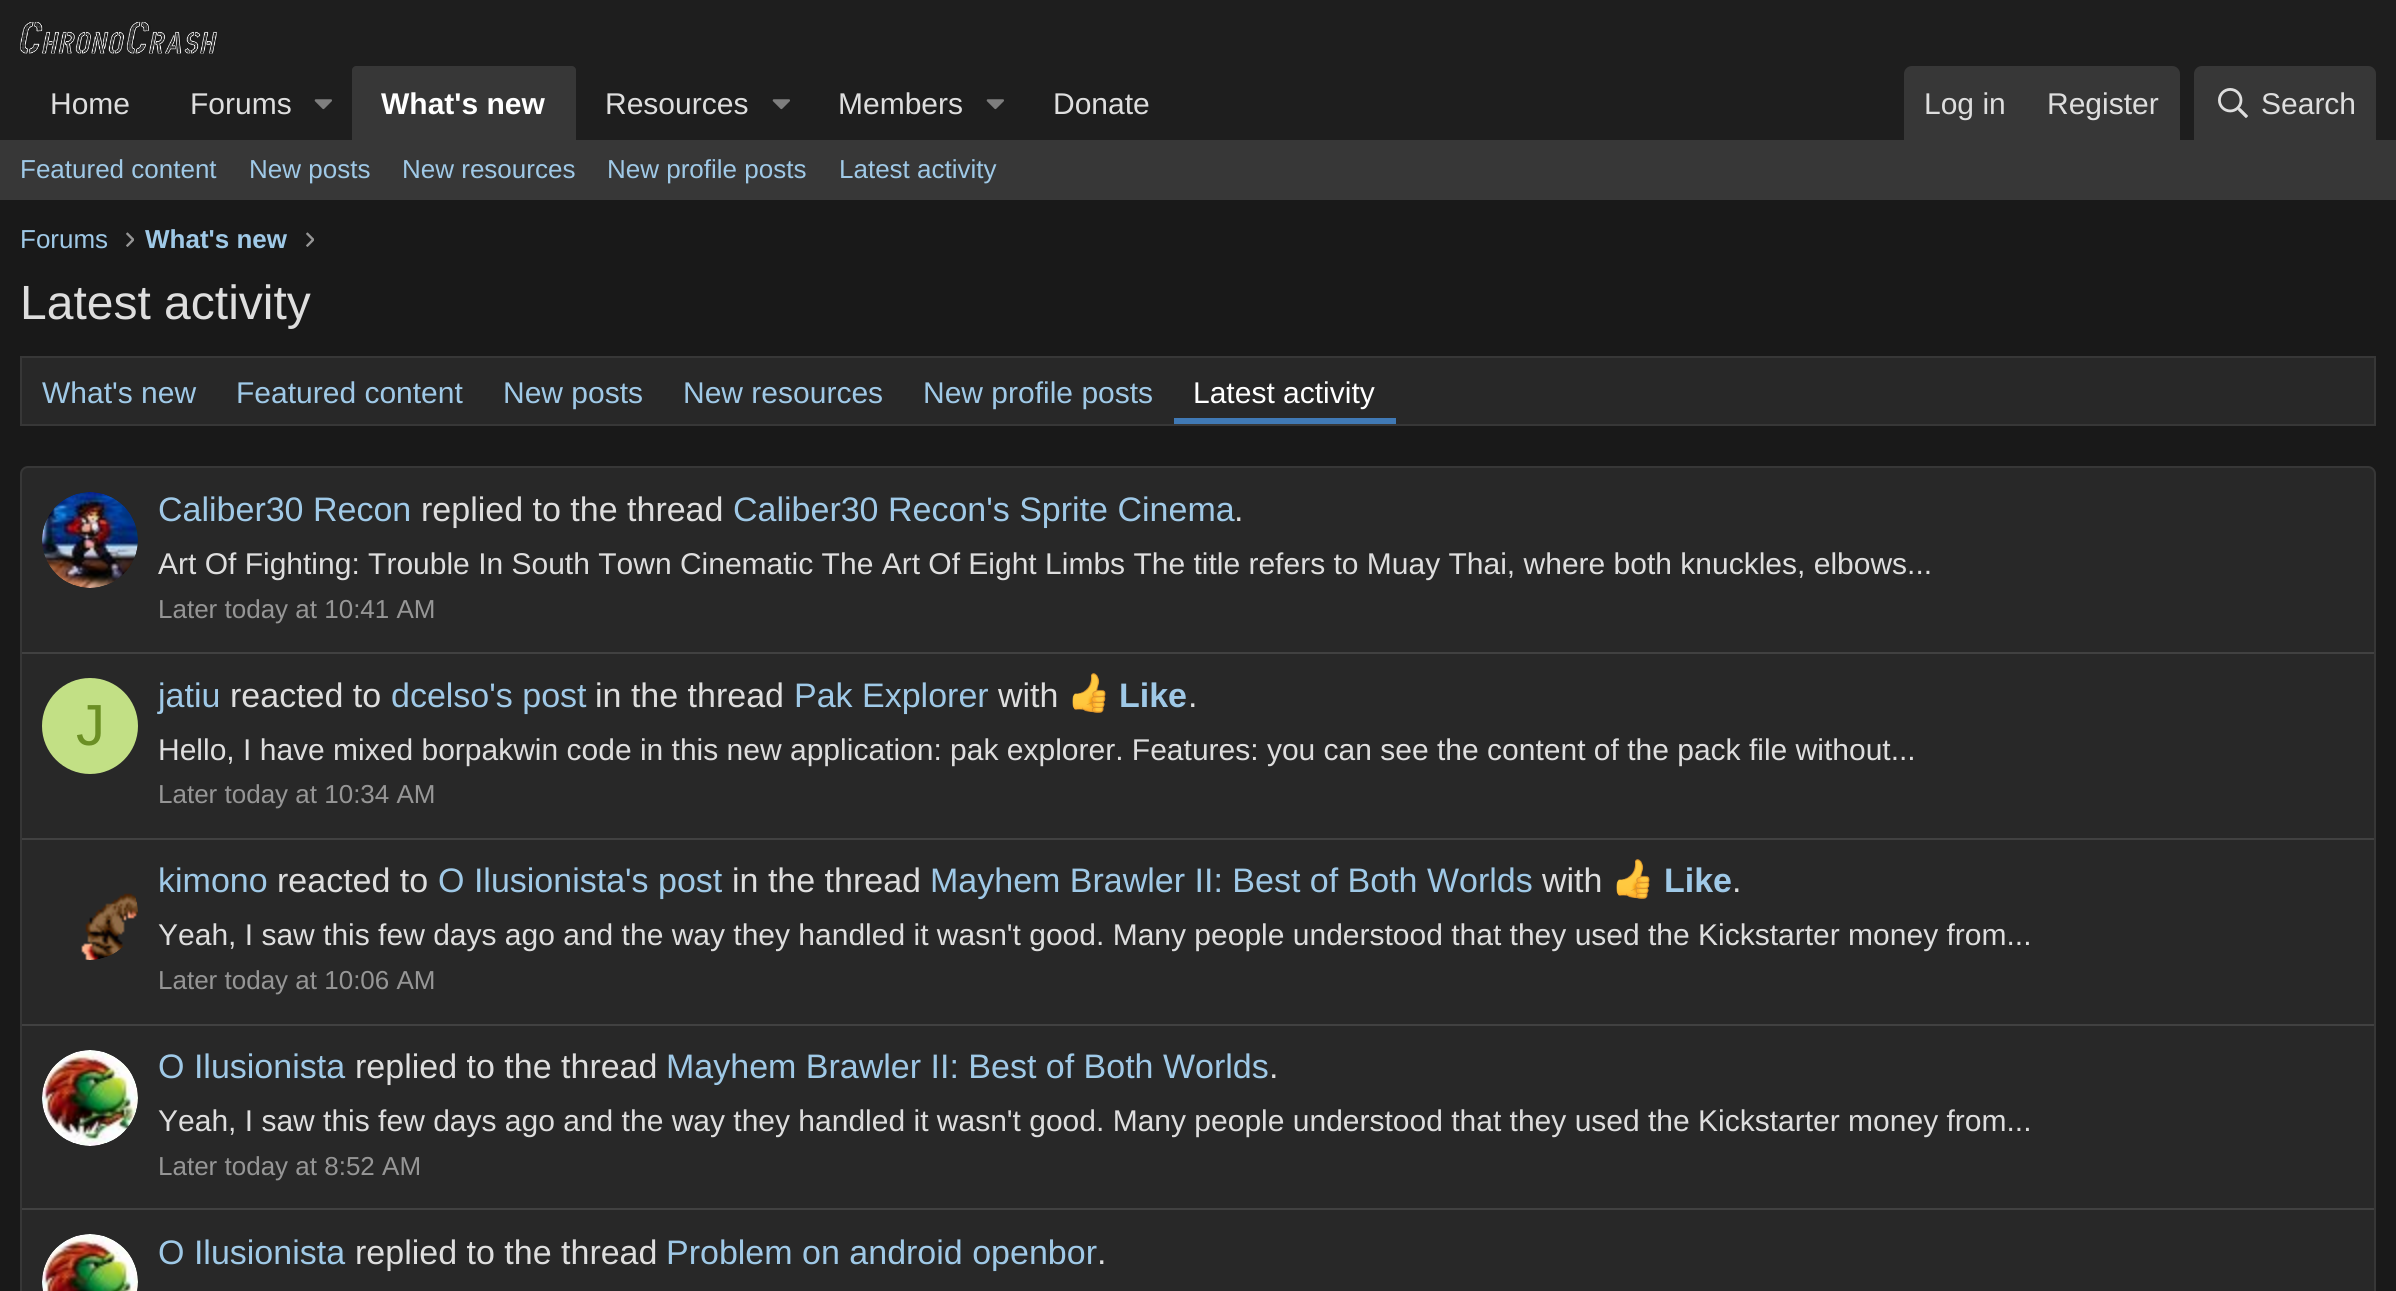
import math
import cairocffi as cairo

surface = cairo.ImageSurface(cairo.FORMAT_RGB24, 2396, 1291)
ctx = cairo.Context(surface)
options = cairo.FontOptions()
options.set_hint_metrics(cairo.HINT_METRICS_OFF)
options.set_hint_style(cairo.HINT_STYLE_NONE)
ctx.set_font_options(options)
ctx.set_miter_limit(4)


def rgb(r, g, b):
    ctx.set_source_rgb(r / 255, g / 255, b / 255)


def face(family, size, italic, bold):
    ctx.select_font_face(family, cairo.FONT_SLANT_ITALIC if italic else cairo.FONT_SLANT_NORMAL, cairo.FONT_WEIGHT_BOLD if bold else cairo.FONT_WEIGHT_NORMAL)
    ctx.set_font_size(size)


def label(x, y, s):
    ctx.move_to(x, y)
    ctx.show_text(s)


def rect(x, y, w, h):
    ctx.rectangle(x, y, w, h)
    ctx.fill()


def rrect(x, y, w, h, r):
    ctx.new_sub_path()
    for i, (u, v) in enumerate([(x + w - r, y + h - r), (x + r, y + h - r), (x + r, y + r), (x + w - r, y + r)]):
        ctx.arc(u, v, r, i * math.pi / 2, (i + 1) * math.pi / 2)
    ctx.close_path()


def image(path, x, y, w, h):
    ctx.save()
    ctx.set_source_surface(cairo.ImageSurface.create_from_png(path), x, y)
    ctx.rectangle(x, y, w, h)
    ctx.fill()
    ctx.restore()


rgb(25, 25, 25)
ctx.paint()
rgb(30, 30, 30)
rect(0, 0, 2396, 140)
image('image0.png', 20, 21, 198, 33)
face('Liberation Sans', 30, 0, 0)
rgb(222, 222, 222)
label(50, 114, 'Home')
label(190, 114, 'Forums')
image('image1.png', 314, 99, 18, 11)
rgb(55, 55, 55)
ctx.new_path()
ctx.move_to(356, 66)
ctx.line_to(572, 66)
ctx.curve_to(574, 66, 576, 68, 576, 70)
ctx.line_to(576, 140)
ctx.line_to(352, 140)
ctx.line_to(352, 70)
ctx.curve_to(352, 68, 354, 66, 356, 66)
ctx.close_path()
ctx.fill()
face('Liberation Sans', 30, 0, 1)
rgb(255, 255, 255)
label(381, 114, 'What\'s new')
face('Liberation Sans', 30, 0, 0)
rgb(222, 222, 222)
label(605, 114, 'Resources')
image('image1.png', 772, 99, 18, 11)
label(838, 114, 'Members')
image('image1.png', 986, 99, 18, 11)
label(1053, 114, 'Donate')
rgb(55, 55, 55)
ctx.new_path()
ctx.move_to(1912, 66)
ctx.line_to(2172, 66)
ctx.curve_to(2176.5, 66, 2180, 69.5, 2180, 74)
ctx.line_to(2180, 140)
ctx.line_to(1904, 140)
ctx.line_to(1904, 74)
ctx.curve_to(1904, 69.5, 1907.5, 66, 1912, 66)
ctx.close_path()
ctx.fill()
rgb(222, 222, 222)
label(1924, 114, 'Log in')
label(2047, 114, 'Register')
rgb(55, 55, 55)
ctx.new_path()
ctx.move_to(2202, 66)
ctx.line_to(2368, 66)
ctx.curve_to(2372.5, 66, 2376, 69.5, 2376, 74)
ctx.line_to(2376, 140)
ctx.line_to(2194, 140)
ctx.line_to(2194, 74)
ctx.curve_to(2194, 69.5, 2197.5, 66, 2202, 66)
ctx.close_path()
ctx.fill()
image('image2.png', 2218, 88, 30, 30)
rgb(222, 222, 222)
label(2261, 114, 'Search')
rgb(55, 55, 55)
rect(0, 140, 2396, 60)
face('Liberation Sans', 26, 0, 0)
rgb(159, 201, 231)
label(20, 178, 'Featured content')
label(249, 178, 'New posts')
label(402, 178, 'New resources')
label(607, 178, 'New profile posts')
label(839, 178, 'Latest activity')
label(20, 248, 'Forums')
image('image3.png', 126, 232, 8, 15)
face('Liberation Sans', 26, 0, 1)
label(145, 248, 'What\'s new')
image('image3.png', 306, 232, 8, 15)
face('Liberation Sans', 48, 0, 0)
rgb(222, 222, 222)
label(20, 319, 'Latest activity')
rgb(40, 40, 40)
ctx.rectangle(21, 357, 2354, 68)
ctx.fill_preserve()
rgb(55, 55, 55)
ctx.stroke()
face('Liberation Sans', 30, 0, 0)
rgb(159, 201, 231)
label(42, 403, 'What\'s new')
label(236, 403, 'Featured content')
label(503, 403, 'New posts')
label(683, 403, 'New resources')
label(923, 403, 'New profile posts')
rgb(64, 121, 181)
rect(1174, 418, 222, 6)
rgb(255, 255, 255)
label(1193, 403, 'Latest activity')
rgb(40, 40, 40)
rrect(21, 467, 2354, 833, 7)
ctx.fill_preserve()
rgb(55, 55, 55)
ctx.stroke()
image('image4.png', 42, 492, 96, 96)
face('Liberation Sans', 34, 0, 0)
rgb(159, 201, 231)
label(158, 521, 'Caliber30 Recon')
rgb(222, 222, 222)
label(421, 521, 'replied to the thread')
rgb(159, 201, 231)
label(733, 521, 'Caliber30 Recon\'s Sprite Cinema')
rgb(222, 222, 222)
label(1234, 521, '.')
face('Liberation Sans', 30, 0, 0)
label(158, 574, 'Art Of Fighting: Trouble In South Town Cinematic The Art Of Eight Limbs The title refers to Muay Thai, where both knuckles, elbows...')
face('Liberation Sans', 26, 0, 0)
rgb(150, 150, 150)
label(158, 618, 'Later today at 10:41 AM')
rgb(65, 65, 65)
rect(22, 652, 2352, 2)
rgb(194, 224, 133)
ctx.new_path()
ctx.arc(90, 726, 48, 0, 2 * math.pi)
ctx.fill()
face('Liberation Sans', 58, 0, 0)
rgb(107, 143, 36)
label(76, 745, 'J')
face('Liberation Sans', 34, 0, 0)
rgb(159, 201, 231)
label(158, 707, 'jatiu')
rgb(222, 222, 222)
label(230, 707, 'reacted to')
rgb(159, 201, 231)
label(391, 707, 'dcelso\'s post')
rgb(222, 222, 222)
label(595, 707, 'in the thread')
rgb(159, 201, 231)
label(794, 707, 'Pak Explorer')
rgb(222, 222, 222)
label(998, 707, 'with')
image('image5.png', 1072, 673, 34, 40)
face('Liberation Sans', 34, 0, 1)
rgb(159, 201, 231)
label(1119, 707, 'Like')
face('Liberation Sans', 34, 0, 0)
rgb(222, 222, 222)
label(1188, 707, '.')
face('Liberation Sans', 30, 0, 0)
label(158, 760, 'Hello, I have mixed borpakwin code in this new application: pak explorer. Features: you can see the content of the pack file without...')
face('Liberation Sans', 26, 0, 0)
rgb(150, 150, 150)
label(158, 803, 'Later today at 10:34 AM')
rgb(65, 65, 65)
rect(22, 838, 2352, 2)
image('image6.png', 81, 893, 57, 67)
face('Liberation Sans', 34, 0, 0)
rgb(159, 201, 231)
label(158, 892, 'kimono')
rgb(222, 222, 222)
label(277, 892, 'reacted to')
rgb(159, 201, 231)
label(438, 892, 'O Ilusionista\'s post')
rgb(222, 222, 222)
label(732, 892, 'in the thread')
rgb(159, 201, 231)
label(930, 892, 'Mayhem Brawler II: Best of Both Worlds')
rgb(222, 222, 222)
label(1542, 892, 'with')
image('image7.png', 1616, 859, 34, 40)
face('Liberation Sans', 34, 0, 1)
rgb(159, 201, 231)
label(1664, 892, 'Like')
face('Liberation Sans', 34, 0, 0)
rgb(222, 222, 222)
label(1732, 892, '.')
face('Liberation Sans', 30, 0, 0)
label(158, 945, 'Yeah, I saw this few days ago and the way they handled it wasn\'t good. Many people understood that they used the Kickstarter money from...')
face('Liberation Sans', 26, 0, 0)
rgb(150, 150, 150)
label(158, 989, 'Later today at 10:06 AM')
rgb(65, 65, 65)
rect(22, 1024, 2352, 2)
image('image8.png', 42, 1050, 96, 96)
face('Liberation Sans', 34, 0, 0)
rgb(159, 201, 231)
label(158, 1078, 'O Ilusionista')
rgb(222, 222, 222)
label(355, 1078, 'replied to the thread')
rgb(159, 201, 231)
label(666, 1078, 'Mayhem Brawler II: Best of Both Worlds')
rgb(222, 222, 222)
label(1269, 1078, '.')
face('Liberation Sans', 30, 0, 0)
label(158, 1131, 'Yeah, I saw this few days ago and the way they handled it wasn\'t good. Many people understood that they used the Kickstarter money from...')
face('Liberation Sans', 26, 0, 0)
rgb(150, 150, 150)
label(158, 1175, 'Later today at 8:52 AM')
rgb(65, 65, 65)
rect(22, 1208, 2352, 2)
image('image9.png', 42, 1234, 96, 57)
face('Liberation Sans', 34, 0, 0)
rgb(159, 201, 231)
label(158, 1264, 'O Ilusionista')
rgb(222, 222, 222)
label(355, 1264, 'replied to the thread')
rgb(159, 201, 231)
label(666, 1264, 'Problem on android openbor')
rgb(222, 222, 222)
label(1097, 1264, '.')
surface.write_to_png('render.png')
